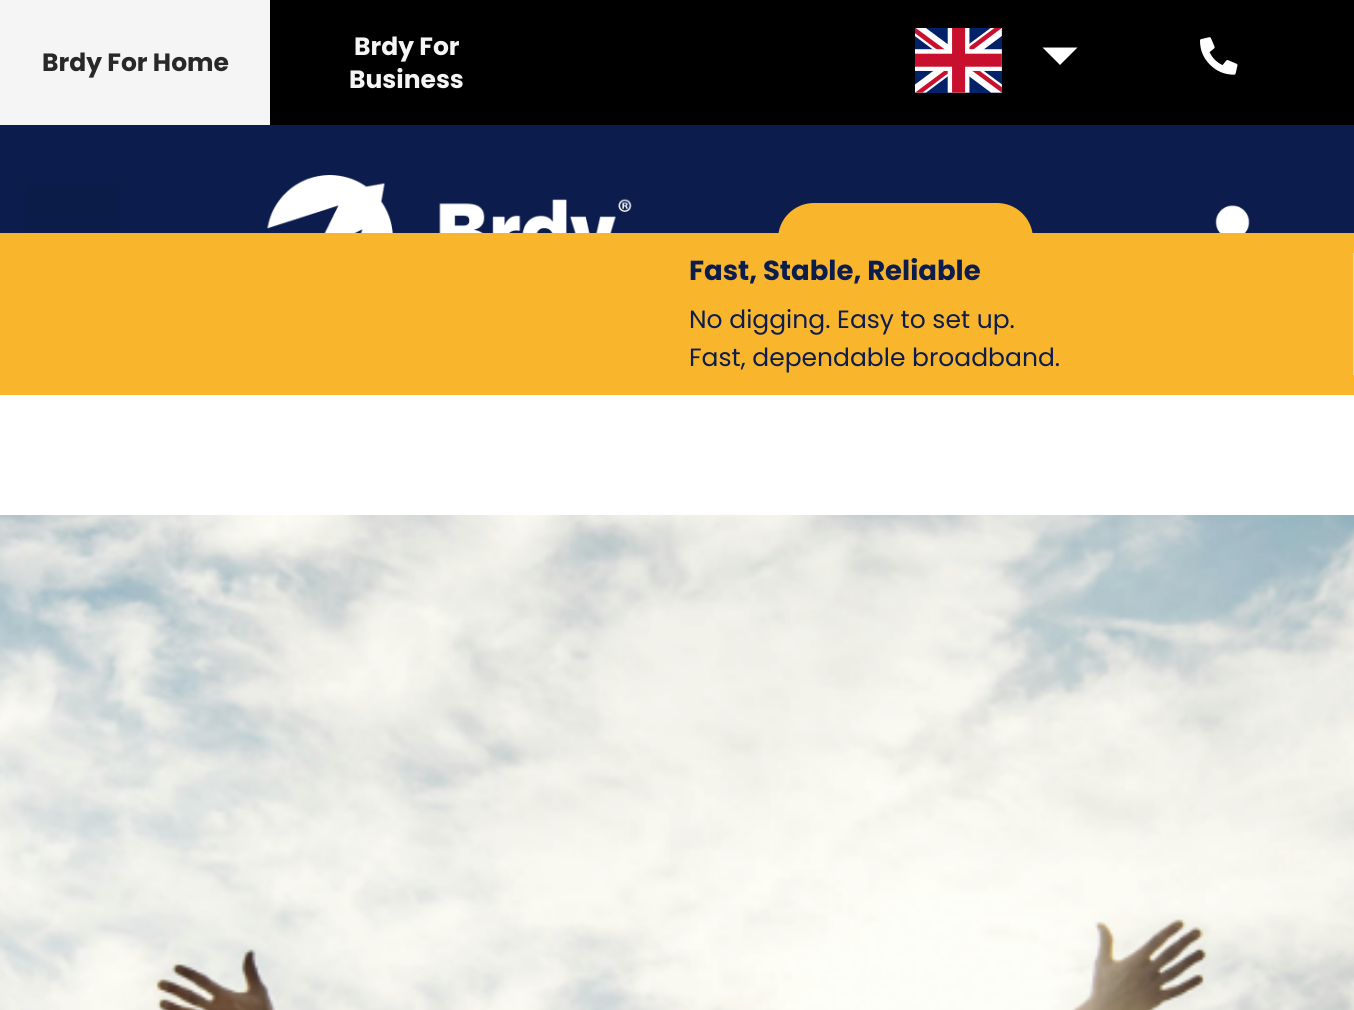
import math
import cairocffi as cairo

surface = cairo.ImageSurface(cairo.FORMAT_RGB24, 1354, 1010)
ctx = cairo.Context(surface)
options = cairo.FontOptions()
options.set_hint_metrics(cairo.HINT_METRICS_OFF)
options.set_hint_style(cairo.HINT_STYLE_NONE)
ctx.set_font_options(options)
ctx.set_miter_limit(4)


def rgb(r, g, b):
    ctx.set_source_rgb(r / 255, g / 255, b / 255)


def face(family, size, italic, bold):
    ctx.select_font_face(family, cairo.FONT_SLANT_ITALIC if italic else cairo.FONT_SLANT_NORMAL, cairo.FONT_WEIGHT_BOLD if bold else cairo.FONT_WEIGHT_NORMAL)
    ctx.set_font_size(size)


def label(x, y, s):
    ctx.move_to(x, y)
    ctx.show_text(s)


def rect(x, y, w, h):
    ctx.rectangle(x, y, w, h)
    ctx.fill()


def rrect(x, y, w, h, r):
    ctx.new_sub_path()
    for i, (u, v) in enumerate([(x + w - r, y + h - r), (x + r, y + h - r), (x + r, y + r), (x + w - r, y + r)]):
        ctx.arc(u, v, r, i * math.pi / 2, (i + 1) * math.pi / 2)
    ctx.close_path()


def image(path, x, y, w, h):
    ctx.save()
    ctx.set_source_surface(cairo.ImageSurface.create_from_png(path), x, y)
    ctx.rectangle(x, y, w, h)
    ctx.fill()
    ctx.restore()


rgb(255, 255, 255)
ctx.paint()
rgb(0, 0, 0)
rect(270, 0, 1084, 125)
rgb(245, 245, 245)
rect(0, 0, 270, 125)
face('Poppins', 25, 0, 1)
rgb(40, 40, 40)
label(42, 71, 'Brdy For Home')
rgb(245, 245, 245)
label(354, 55, 'Brdy For')
label(349, 88, 'Business')
image('image0.png', 915, 28, 87, 65)
rgb(255, 255, 255)
ctx.new_path()
ctx.move_to(1042.5, 47.5)
ctx.line_to(1077.5, 47.5)
ctx.line_to(1060, 65)
ctx.close_path()
ctx.fill()
image('image1.png', 1200, 37, 38, 38)
rgb(12, 29, 77)
rect(0, 125, 1354, 108)
rgb(11, 28, 73)
rrect(25, 183, 95, 112, 8)
ctx.fill()
image('image2.png', 267, 175, 365, 58)
rgb(249, 181, 44)
rrect(778, 203, 255, 72, 36)
ctx.fill()
image('image3.png', 1215, 205, 35, 28)
rect(0, 233, 1354, 162)
rgb(247, 214, 149)
rect(1353, 253, 1, 122)
face('Poppins', 27.5, 0, 1)
rgb(12, 29, 77)
label(689, 280, 'Fast, Stable, Reliable')
face('Poppins', 25, 0, 0)
label(689, 328, 'No digging. Easy to set up.')
label(689, 366, 'Fast, dependable broadband.')
image('image4.png', 0, 515, 1354, 495)
surface.write_to_png('render.png')
